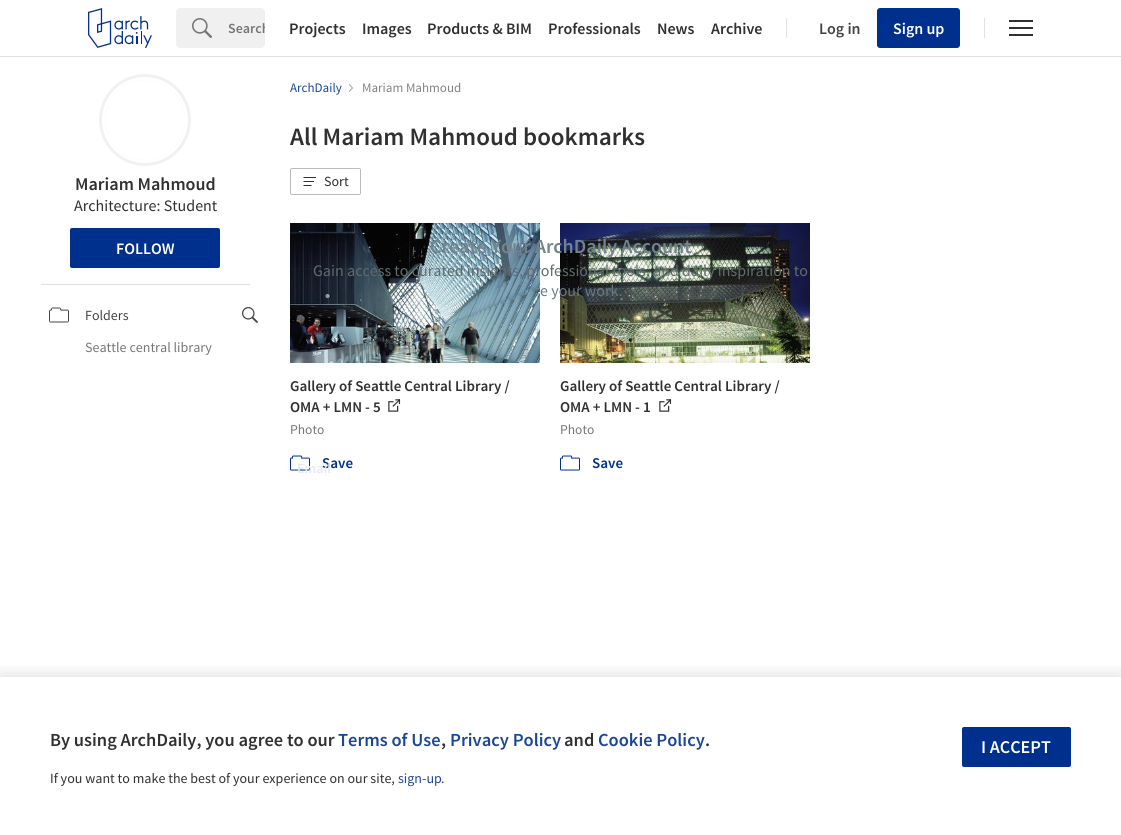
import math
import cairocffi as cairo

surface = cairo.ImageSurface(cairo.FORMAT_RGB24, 1121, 835)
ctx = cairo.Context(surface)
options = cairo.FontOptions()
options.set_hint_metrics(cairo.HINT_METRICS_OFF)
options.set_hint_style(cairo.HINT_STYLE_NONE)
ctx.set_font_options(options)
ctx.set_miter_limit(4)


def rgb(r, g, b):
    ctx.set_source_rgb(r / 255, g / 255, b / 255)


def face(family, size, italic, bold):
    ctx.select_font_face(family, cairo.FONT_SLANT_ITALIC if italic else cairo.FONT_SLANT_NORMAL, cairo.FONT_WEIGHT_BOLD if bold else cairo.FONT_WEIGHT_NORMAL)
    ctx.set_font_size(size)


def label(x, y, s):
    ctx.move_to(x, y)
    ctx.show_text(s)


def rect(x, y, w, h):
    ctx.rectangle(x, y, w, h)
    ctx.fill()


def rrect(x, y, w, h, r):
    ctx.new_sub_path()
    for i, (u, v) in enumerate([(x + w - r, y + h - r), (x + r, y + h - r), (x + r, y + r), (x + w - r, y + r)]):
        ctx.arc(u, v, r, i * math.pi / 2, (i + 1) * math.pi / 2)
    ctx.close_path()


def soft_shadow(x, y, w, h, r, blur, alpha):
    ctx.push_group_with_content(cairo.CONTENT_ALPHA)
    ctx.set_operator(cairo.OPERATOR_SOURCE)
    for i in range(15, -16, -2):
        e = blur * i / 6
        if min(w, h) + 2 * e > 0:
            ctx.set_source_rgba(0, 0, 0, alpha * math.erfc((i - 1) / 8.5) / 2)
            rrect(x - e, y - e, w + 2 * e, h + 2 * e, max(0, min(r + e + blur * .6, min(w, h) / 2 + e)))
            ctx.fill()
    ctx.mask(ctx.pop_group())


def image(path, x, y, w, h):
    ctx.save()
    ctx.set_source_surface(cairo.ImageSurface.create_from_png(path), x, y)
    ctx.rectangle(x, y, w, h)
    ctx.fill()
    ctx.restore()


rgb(255, 255, 255)
ctx.paint()
rgb(225, 225, 225)
rect(0, 56, 1121, 1)
image('image0.png', 88, 8, 64, 40)
rgb(240, 240, 240)
rrect(176, 8, 89, 40, 4)
ctx.fill()
image('image1.png', 192, 18, 20, 20)
ctx.save()
ctx.rectangle(228, 19, 37, 18)
ctx.clip()
face('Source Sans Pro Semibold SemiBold', 14, 0, 0)
rgb(118, 118, 118)
label(228, 33, 'Search')
ctx.restore()
face('Source Sans Pro Semibold SemiBold', 16, 0, 0)
rgb(48, 48, 48)
label(289, 34, 'Projects')
label(362, 34, 'Images')
label(427, 34, 'Products & BIM')
label(548, 34, 'Professionals')
label(657, 34, 'News')
label(711, 34, 'Archive')
rgb(225, 225, 225)
rect(786, 18, 1, 20)
rgb(68, 68, 68)
label(819, 34, 'Log in')
rgb(0, 48, 142)
rrect(877, 8, 83, 40, 3)
ctx.fill()
rgb(255, 255, 255)
label(893, 34, 'Sign up')
rgb(225, 225, 225)
rect(984, 18, 1, 20)
rgb(48, 48, 48)
rect(1009, 27, 24, 2)
rect(1009, 20, 24, 2)
rect(1009, 34, 24, 2)
ctx.save()
ctx.rectangle(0, 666, 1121, 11)
ctx.clip()
rgb(0, 0, 0)
soft_shadow(0, 677, 1121, 158, 0, 10, 0.15)
ctx.restore()
face('Source Sans Pro Semibold SemiBold', 18.4, 0, 0)
label(50, 746, 'By using ArchDaily, you agree to our')
rgb(26, 69, 153)
label(338, 746, 'Terms of Use')
rgb(48, 48, 48)
label(441, 746, ',')
rgb(26, 69, 153)
label(450, 746, 'Privacy Policy')
rgb(48, 48, 48)
label(564, 746, 'and')
rgb(26, 69, 153)
label(598, 746, 'Cookie Policy')
rgb(48, 48, 48)
label(705, 746, '.')
face('Source Sans Pro', 14, 0, 0)
label(50, 783, 'If you want to make the best of your experience on our site,')
rgb(26, 69, 153)
label(398, 783, 'sign-up')
rgb(48, 48, 48)
label(441, 783, '.')
rgb(0, 48, 142)
rrect(962, 727, 109, 40, 2)
ctx.fill()
face('Source Sans Pro Semibold SemiBold', 18, 0, 0)
rgb(255, 255, 255)
label(981, 753, 'I ACCEPT')
ctx.new_path()
ctx.arc(145, 120, 43, 0, 2 * math.pi)
rgb(241, 241, 241)
ctx.set_line_width(6)
ctx.stroke()
ctx.arc(145, 120, 41.5, 0, 2 * math.pi)
rgb(255, 255, 255)
ctx.set_line_width(3)
ctx.stroke()
rgb(48, 48, 48)
label(75, 190, 'Mariam Mahmoud')
face('Source Sans Pro', 16, 0, 0)
label(74, 211, 'Architecture: Student')
rgb(0, 48, 142)
rrect(70, 228, 150, 40, 2)
ctx.fill()
face('Source Sans Pro Semibold SemiBold', 16, 0, 0)
rgb(255, 255, 255)
label(116, 254, 'FOLLOW')
rgb(225, 225, 225)
rect(41, 284, 209, 1)
image('image2.png', 49, 307, 20, 16)
face('Source Sans Pro', 14, 0, 0)
rgb(68, 68, 68)
label(85, 320, 'Folders')
image('image3.png', 242, 307, 16, 16)
rgb(118, 118, 118)
label(85, 352, 'Seattle central library')
face('Source Sans Pro', 13, 0, 0)
rgb(26, 69, 153)
label(290, 92, 'ArchDaily')
rgb(130, 130, 130)
ctx.new_path()
ctx.move_to(349, 92)
ctx.line_to(349, 84)
ctx.line_to(353, 88)
ctx.close_path()
ctx.fill()
rgb(255, 255, 255)
ctx.new_path()
ctx.move_to(348, 92)
ctx.line_to(348, 84)
ctx.line_to(352, 88)
ctx.close_path()
ctx.fill()
rgb(130, 130, 130)
label(362, 92, 'Mariam Mahmoud')
face('Source Sans Pro Semibold SemiBold', 25, 0, 0)
rgb(48, 48, 48)
label(290, 145, 'All Mariam Mahmoud bookmarks')
rrect(290.5, 168.5, 70, 26, 1.5)
rgb(187, 187, 187)
ctx.set_line_width(1)
ctx.stroke()
image('image4.png', 303, 177, 13, 9)
face('Source Sans Pro', 14, 0, 0)
rgb(48, 48, 48)
label(324, 186, 'Sort')
image('image5.png', 290, 223, 250, 140)
face('Source Sans Pro Semibold SemiBold', 15, 0, 0)
label(290, 391, 'Gallery of Seattle Central Library /')
label(290, 412, 'OMA + LMN - 5')
image('image6.png', 388, 399, 13, 13)
face('Source Sans Pro', 13.5, 0, 0)
rgb(118, 118, 118)
label(290, 434, 'Photo')
image('image7.png', 290, 455, 20, 16)
face('Source Sans Pro Semibold SemiBold', 15, 0, 0)
rgb(0, 48, 142)
label(322, 468, 'Save')
image('image8.png', 560, 223, 250, 140)
rgb(48, 48, 48)
label(560, 391, 'Gallery of Seattle Central Library /')
label(560, 412, 'OMA + LMN - 1')
image('image6.png', 659, 399, 13, 13)
face('Source Sans Pro', 13.5, 0, 0)
rgb(118, 118, 118)
label(560, 434, 'Photo')
image('image7.png', 560, 455, 20, 16)
face('Source Sans Pro Semibold SemiBold', 15, 0, 0)
rgb(0, 48, 142)
label(592, 468, 'Save')
face('Source Sans Pro Semibold SemiBold', 20, 0, 0)
rgb(114, 131, 140)
label(430, 253, 'Create Your ArchDaily Account')
face('Source Sans Pro', 16, 0, 0)
rgb(95, 107, 109)
label(313, 276, 'Gain access to curated insights, professional tools, and daily inspiration to')
rgb(105, 121, 129)
label(540, 296, 'e your work.')
face('Source Sans Pro Semibold SemiBold', 14, 0, 0)
rgb(228, 233, 243)
label(297, 473, 'Email')
surface.write_to_png('render.png')
